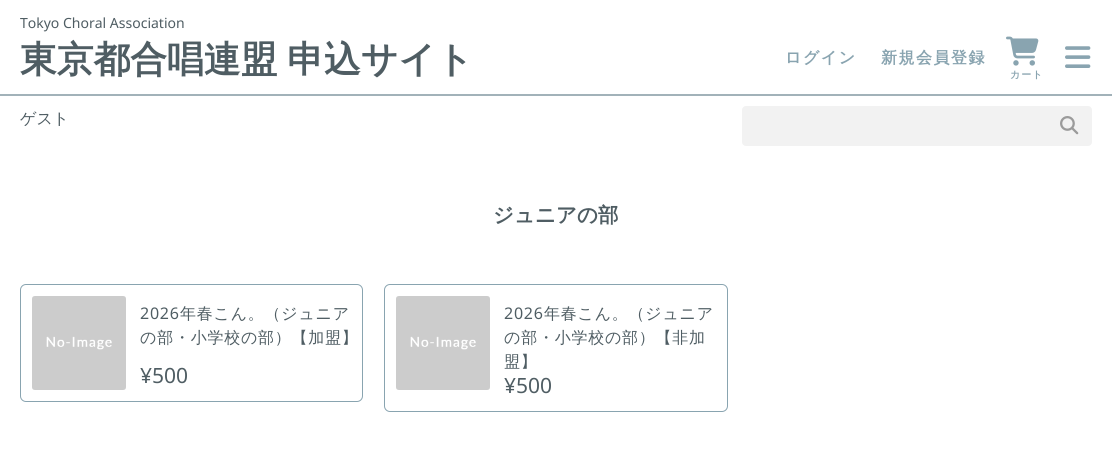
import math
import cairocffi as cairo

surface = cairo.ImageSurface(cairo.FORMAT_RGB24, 1112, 467)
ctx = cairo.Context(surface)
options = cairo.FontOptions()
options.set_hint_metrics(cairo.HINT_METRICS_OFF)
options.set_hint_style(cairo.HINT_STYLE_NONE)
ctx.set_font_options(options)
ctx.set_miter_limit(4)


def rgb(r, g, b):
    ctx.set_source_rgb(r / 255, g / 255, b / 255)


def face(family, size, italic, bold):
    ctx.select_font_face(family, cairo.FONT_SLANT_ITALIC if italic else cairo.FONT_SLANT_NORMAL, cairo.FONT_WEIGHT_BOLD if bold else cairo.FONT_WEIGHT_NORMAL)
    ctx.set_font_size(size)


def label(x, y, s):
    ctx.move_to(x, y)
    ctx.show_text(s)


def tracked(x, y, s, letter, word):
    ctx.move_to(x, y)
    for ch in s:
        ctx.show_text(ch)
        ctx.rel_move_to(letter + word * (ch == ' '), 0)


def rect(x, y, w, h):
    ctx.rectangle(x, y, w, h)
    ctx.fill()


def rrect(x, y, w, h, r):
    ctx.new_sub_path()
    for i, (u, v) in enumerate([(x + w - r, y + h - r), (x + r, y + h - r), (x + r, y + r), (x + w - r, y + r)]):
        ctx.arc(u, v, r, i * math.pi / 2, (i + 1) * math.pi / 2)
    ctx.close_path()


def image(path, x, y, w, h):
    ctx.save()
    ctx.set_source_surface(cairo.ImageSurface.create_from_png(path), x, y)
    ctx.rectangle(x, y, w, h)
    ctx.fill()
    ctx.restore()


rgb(255, 255, 255)
ctx.paint()
face('Noto Sans', 14, 0, 0)
rgb(79, 93, 99)
label(20, 28, 'Tokyo Choral Association')
face('WenQuanYi Zen Hei', 36.75, 0, 1)
tracked(20, 72, '東京都合唱連盟 申込サイト', 0, -1)
face('WenQuanYi Zen Hei', 16, 0, 1)
rgb(137, 164, 176)
tracked(785, 63, 'ログイン', 1.5, 0)
tracked(881, 63, '新規会員登録', 1.5, 0)
image('image0.png', 1065, 46, 26, 22)
image('image1.png', 1006, 36, 33, 30)
face('WenQuanYi Zen Hei', 10, 0, 1)
tracked(1010, 78, 'カート', 1, 0)
rgb(162, 178, 185)
rect(0, 94, 1112, 2)
face('WenQuanYi Zen Hei Medium', 16, 0, 0)
rgb(79, 93, 99)
label(20, 124, 'ゲスト')
rgb(242, 242, 242)
rrect(742, 106, 350, 40, 4)
ctx.fill()
image('image2.png', 1060, 116, 19, 19)
face('WenQuanYi Zen Hei', 20.5, 0, 1)
rgb(79, 93, 99)
label(493, 222, 'ジュニアの部')
rrect(20.5, 284.5, 342, 117, 5.5)
rgb(137, 164, 176)
ctx.set_line_width(1)
ctx.stroke()
image('image3.png', 32, 296, 94, 94)
face('Noto Sans', 16, 0, 0)
rgb(79, 93, 99)
tracked(140, 319, '2026', 0.75, 0)
face('WenQuanYi Zen Hei Medium', 16, 0, 0)
tracked(180, 319, '年春こん。（ジュニア', 0.75, 0)
tracked(140, 343, 'の部・小学校の部）【加盟】', 0.75, 0)
face('Noto Sans', 21, 0, 0)
label(140, 383, '¥500')
rrect(384.5, 284.5, 343, 127, 5.5)
rgb(137, 164, 176)
ctx.stroke()
image('image3.png', 396, 296, 94, 94)
face('Noto Sans', 16, 0, 0)
rgb(79, 93, 99)
tracked(504, 319, '2026', 0.75, 0)
face('WenQuanYi Zen Hei Medium', 16, 0, 0)
tracked(544, 319, '年春こん。（ジュニア', 0.75, 0)
tracked(504, 343, 'の部・小学校の部）【非加', 0.75, 0)
tracked(504, 367, '盟】', 0.75, 0)
face('Noto Sans', 21, 0, 0)
label(504, 393, '¥500')
surface.write_to_png('render.png')
